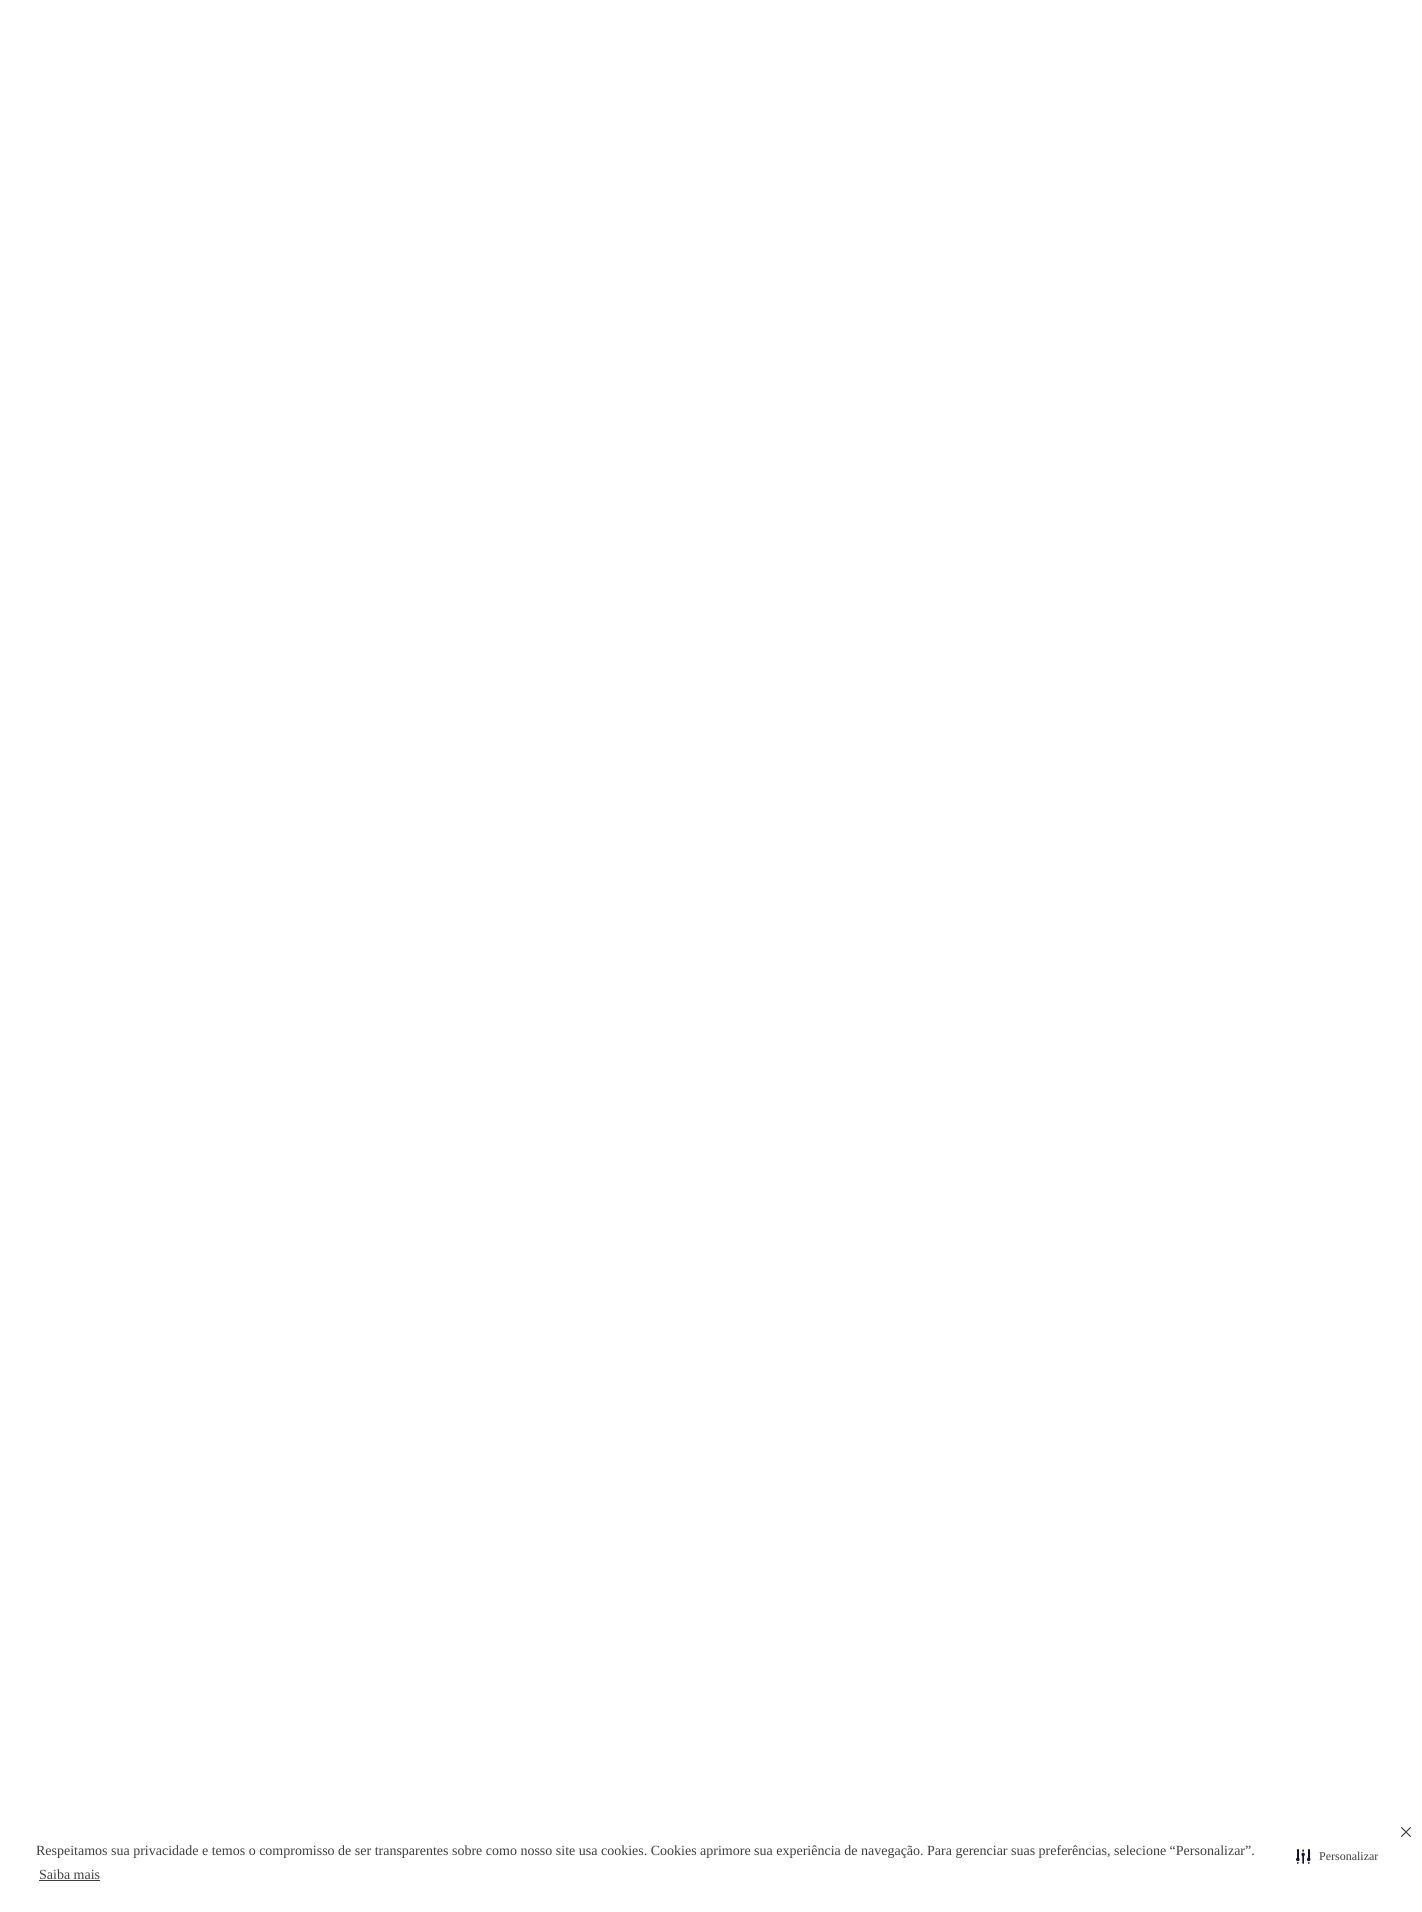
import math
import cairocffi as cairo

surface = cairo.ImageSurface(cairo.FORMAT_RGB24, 1422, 1912)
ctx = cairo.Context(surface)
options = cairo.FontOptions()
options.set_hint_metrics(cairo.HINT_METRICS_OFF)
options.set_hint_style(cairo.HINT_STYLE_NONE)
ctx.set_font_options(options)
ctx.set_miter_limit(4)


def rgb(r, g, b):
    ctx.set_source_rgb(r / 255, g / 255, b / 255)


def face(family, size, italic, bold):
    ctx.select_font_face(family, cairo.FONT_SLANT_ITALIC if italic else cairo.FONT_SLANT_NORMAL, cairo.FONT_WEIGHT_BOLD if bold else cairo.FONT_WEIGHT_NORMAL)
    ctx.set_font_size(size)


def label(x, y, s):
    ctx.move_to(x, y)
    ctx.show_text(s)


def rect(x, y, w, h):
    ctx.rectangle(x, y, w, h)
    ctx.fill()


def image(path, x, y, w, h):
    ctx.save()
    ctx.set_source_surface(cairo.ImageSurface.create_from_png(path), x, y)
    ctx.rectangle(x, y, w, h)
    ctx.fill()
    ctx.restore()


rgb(255, 255, 255)
ctx.paint()
face('Liberation Serif', 14, 0, 0)
rgb(64, 64, 64)
label(36, 1855, 'Respeitamos sua privacidade e temos o compromisso de ser transparentes sobre como nosso site usa cookies. Cookies aprimore sua experiência de navegação. Para gerenciar suas preferências, selecione “Personalizar”.')
label(39, 1879, 'Saiba mais')
rect(39, 1880, 61, 1)
image('image0.png', 1401, 1827, 10, 10)
image('image1.png', 1296, 1849, 15, 15)
face('Liberation Serif', 12, 0, 0)
label(1319, 1860, 'Personalizar')
surface.write_to_png('render.png')
